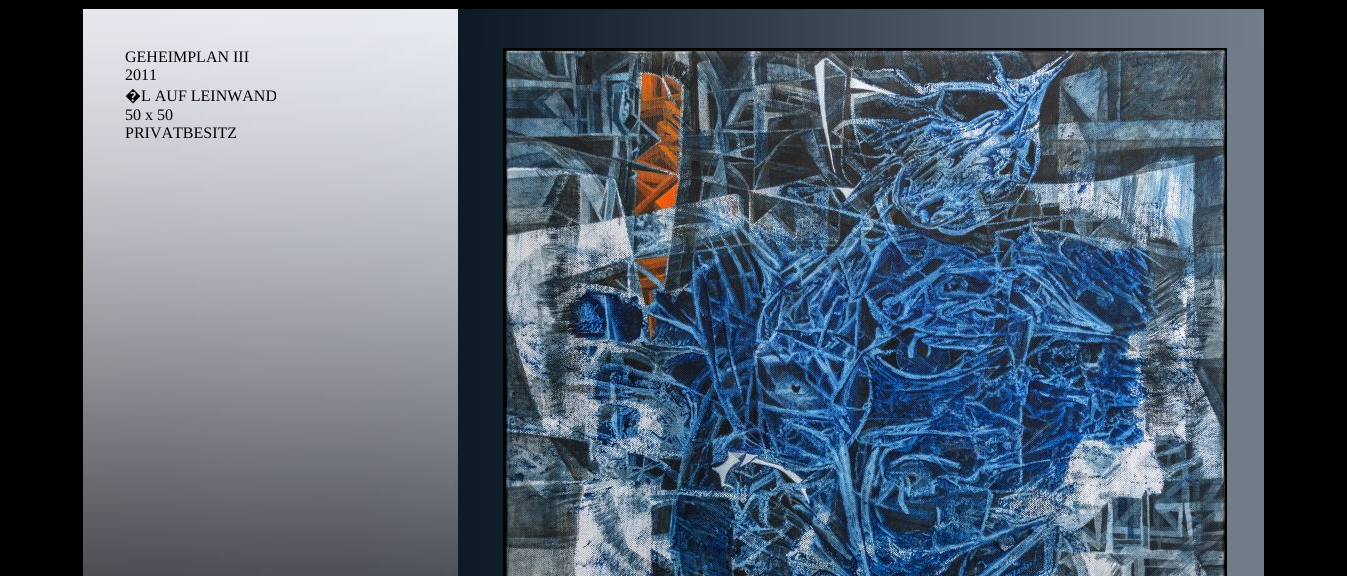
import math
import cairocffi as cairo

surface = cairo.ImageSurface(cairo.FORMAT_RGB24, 1347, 576)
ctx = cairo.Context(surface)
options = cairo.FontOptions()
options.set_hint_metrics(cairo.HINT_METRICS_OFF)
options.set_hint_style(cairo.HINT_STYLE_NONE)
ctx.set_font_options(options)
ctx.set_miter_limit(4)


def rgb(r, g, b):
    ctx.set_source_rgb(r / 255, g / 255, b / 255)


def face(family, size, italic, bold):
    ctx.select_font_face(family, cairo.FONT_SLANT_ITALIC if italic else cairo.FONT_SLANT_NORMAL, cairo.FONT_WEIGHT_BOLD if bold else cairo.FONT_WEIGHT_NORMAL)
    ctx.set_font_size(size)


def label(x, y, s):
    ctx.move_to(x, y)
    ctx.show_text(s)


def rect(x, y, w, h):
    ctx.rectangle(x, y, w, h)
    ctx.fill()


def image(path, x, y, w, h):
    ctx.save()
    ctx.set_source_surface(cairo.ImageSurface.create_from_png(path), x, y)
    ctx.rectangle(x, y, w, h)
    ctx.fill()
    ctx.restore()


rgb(0, 0, 0)
ctx.paint()
image('image0.png', 83, 9, 1181, 39)
image('image1.png', 83, 48, 42, 528)
image('image2.png', 125, 48, 378, 109)
face('Liberation Serif', 16, 0, 0)
rgb(0, 0, 0)
label(125, 62, 'GEHEIMPLAN III')
label(125, 80, '2011')
face('Noto Sans', 16, 0, 0)
label(125, 101, '�')
face('Liberation Serif', 16, 0, 0)
label(141, 101, 'L AUF LEINWAND')
label(125, 120, '50 x 50')
label(125, 138, 'PRIVATBESITZ')
image('image3.png', 503, 48, 724, 528)
rgb(111, 125, 136)
rect(1227, 48, 37, 528)
image('image4.png', 125, 157, 378, 419)
surface.write_to_png('render.png')
